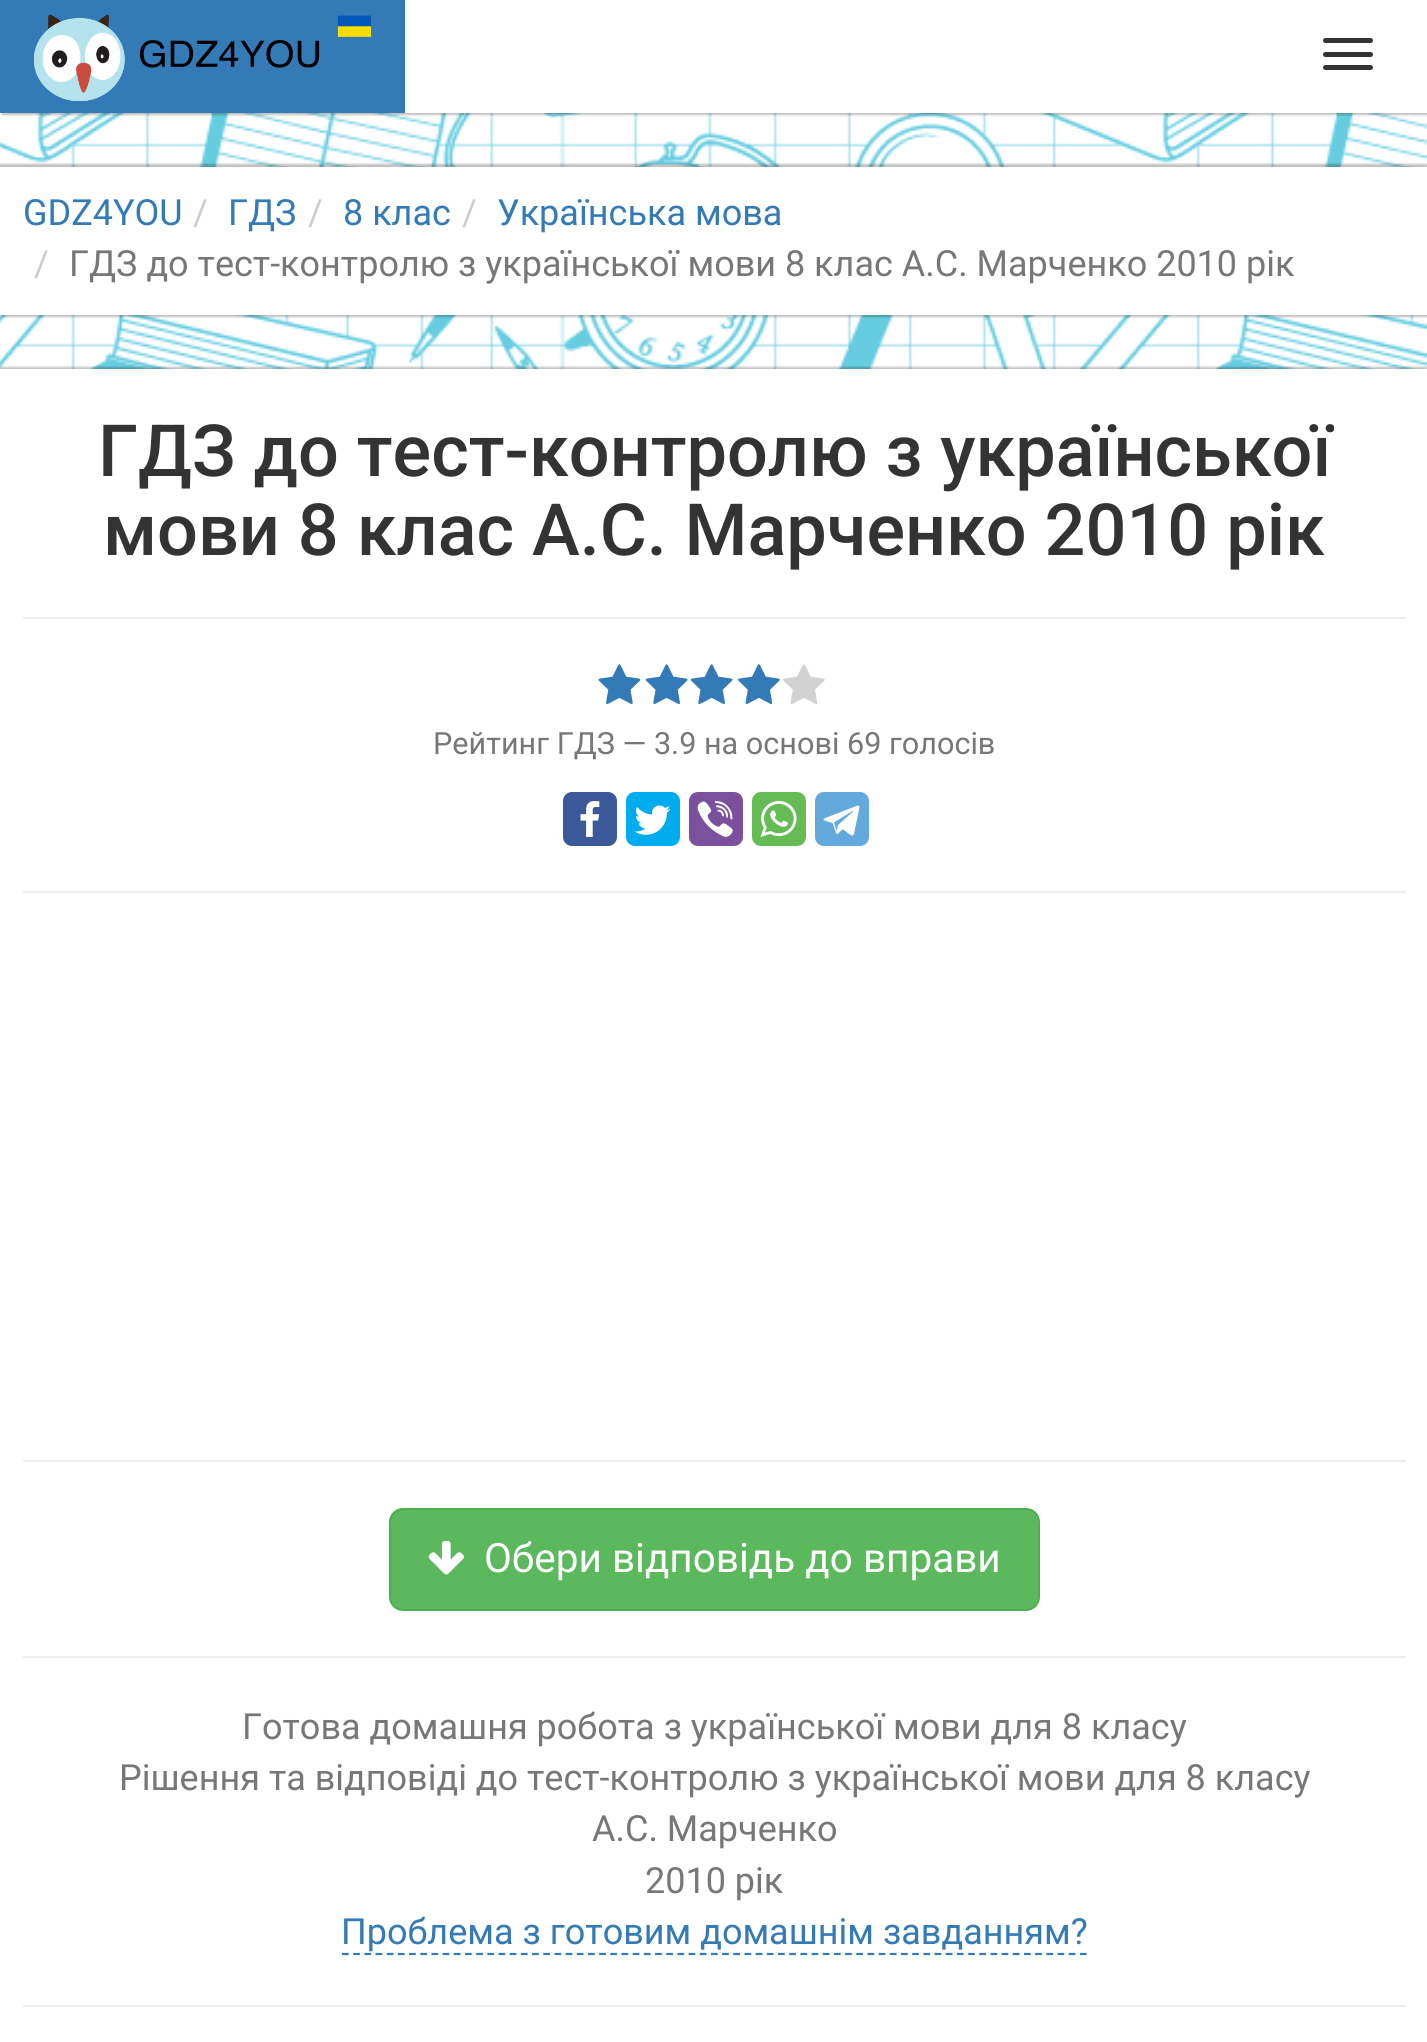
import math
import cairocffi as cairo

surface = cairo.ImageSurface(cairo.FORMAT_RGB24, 1427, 2042)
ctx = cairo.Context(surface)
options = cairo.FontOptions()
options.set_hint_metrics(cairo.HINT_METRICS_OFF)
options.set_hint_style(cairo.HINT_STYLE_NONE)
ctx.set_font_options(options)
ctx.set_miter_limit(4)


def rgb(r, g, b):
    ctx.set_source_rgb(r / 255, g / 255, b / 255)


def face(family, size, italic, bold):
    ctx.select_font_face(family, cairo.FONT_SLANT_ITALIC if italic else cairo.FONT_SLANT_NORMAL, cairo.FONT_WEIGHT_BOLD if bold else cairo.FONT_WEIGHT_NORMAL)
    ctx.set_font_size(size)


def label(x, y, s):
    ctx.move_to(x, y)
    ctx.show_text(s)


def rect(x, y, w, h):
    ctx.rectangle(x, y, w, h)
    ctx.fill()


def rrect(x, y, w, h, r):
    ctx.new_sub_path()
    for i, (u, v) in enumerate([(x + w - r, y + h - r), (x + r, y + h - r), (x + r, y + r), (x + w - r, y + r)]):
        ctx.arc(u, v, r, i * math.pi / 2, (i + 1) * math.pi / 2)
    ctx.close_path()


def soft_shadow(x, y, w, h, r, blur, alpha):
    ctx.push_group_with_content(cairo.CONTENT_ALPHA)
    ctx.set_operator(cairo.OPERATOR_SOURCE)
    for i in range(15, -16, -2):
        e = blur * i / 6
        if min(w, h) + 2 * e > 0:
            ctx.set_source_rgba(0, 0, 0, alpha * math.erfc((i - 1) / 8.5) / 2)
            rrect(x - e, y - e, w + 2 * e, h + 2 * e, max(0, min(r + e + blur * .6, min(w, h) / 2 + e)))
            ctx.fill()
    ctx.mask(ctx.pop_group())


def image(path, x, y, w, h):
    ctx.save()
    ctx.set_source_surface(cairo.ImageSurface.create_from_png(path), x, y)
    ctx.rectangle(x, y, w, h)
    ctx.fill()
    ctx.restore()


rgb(255, 255, 255)
ctx.paint()
image('image0.png', 0, 113, 1427, 256)
rgb(0, 0, 0)
soft_shadow(2, 2, 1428, 113, 0, 1, 0.25)
rgb(255, 255, 255)
rect(405, 0, 1022, 113)
rgb(51, 122, 183)
rect(0, 0, 405, 113)
image('image1.png', 34, 14, 337, 87)
rgb(51, 51, 51)
rrect(1323, 38, 50, 5, 2.5)
ctx.fill()
rrect(1323, 52, 50, 5, 2.5)
ctx.fill()
rrect(1323, 65, 50, 5, 2.5)
ctx.fill()
rgb(0, 0, 0)
soft_shadow(-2, 164, 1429, 149, 0, 1, 0.25)
soft_shadow(2, 169, 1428, 148, 0, 1, 0.25)
rgb(255, 255, 255)
rect(0, 167, 1427, 148)
face('Roboto', 36, 0, 0)
rgb(51, 122, 183)
label(23, 225, 'GDZ4YOU')
rgb(204, 204, 204)
label(193, 225, '/')
rgb(51, 122, 183)
label(228, 225, 'ГДЗ')
rgb(204, 204, 204)
label(308, 225, '/')
rgb(51, 122, 183)
label(343, 225, '8 клас')
rgb(204, 204, 204)
label(462, 225, '/')
rgb(51, 122, 183)
label(497, 225, 'Українська мова')
rgb(204, 204, 204)
label(34, 276, '/')
rgb(119, 119, 119)
label(69, 276, 'ГДЗ до тест-контролю з української мови 8 клас А.С. Марченко 2010 рік')
rgb(0, 0, 0)
soft_shadow(-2, 367, 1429, 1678, 0, 1, 0.25)
rgb(255, 255, 255)
rect(0, 369, 1427, 1673)
face('Roboto Medium', 72, 0, 0)
rgb(51, 51, 51)
label(98, 476, 'ГДЗ до тест-контролю з української')
label(103, 555, 'мови 8 клас А.С. Марченко 2010 рік')
rgb(238, 238, 238)
rect(23, 617, 1383, 2)
image('image2.png', 598, 664, 43, 41)
image('image3.png', 645, 664, 43, 41)
image('image3.png', 690, 664, 43, 41)
image('image4.png', 738, 664, 42, 41)
image('image5.png', 783, 664, 42, 40)
face('Roboto', 30.6, 0, 0)
rgb(119, 119, 119)
label(433, 754, 'Рейтинг ГДЗ — 3.9 на основі 69 голосів')
rgb(59, 89, 152)
rrect(563, 792, 54, 54, 9)
ctx.fill()
image('image6.png', 580, 801, 20, 36)
rgb(0, 172, 237)
rrect(626, 792, 54, 54, 9)
ctx.fill()
image('image7.png', 634, 805, 37, 30)
rgb(123, 81, 157)
rrect(689, 792, 54, 54, 9)
ctx.fill()
image('image8.png', 697, 801, 36, 36)
rgb(101, 188, 84)
rrect(752, 792, 54, 54, 9)
ctx.fill()
image('image9.png', 760, 801, 37, 36)
rgb(100, 169, 220)
rrect(815, 792, 54, 54, 9)
ctx.fill()
image('image10.png', 823, 805, 37, 31)
rgb(238, 238, 238)
rect(23, 891, 1383, 2)
rect(23, 1460, 1383, 2)
rgb(92, 184, 92)
rrect(390, 1509, 649, 101, 13)
ctx.fill_preserve()
rgb(76, 174, 76)
ctx.stroke()
image('image11.png', 428, 1540, 36, 35)
face('Roboto', 40.5, 0, 0)
rgb(255, 255, 255)
label(484, 1572, 'Обери відповідь до вправи')
rgb(238, 238, 238)
rect(23, 1656, 1383, 2)
face('Roboto', 36, 0, 0)
rgb(119, 119, 119)
label(242, 1739, 'Готова домашня робота з української мови для 8 класу')
label(119, 1790, 'Рішення та відповіді до тест-контролю з української мови для 8 класу')
label(592, 1841, 'А.С. Марченко')
label(645, 1893, '2010 рік')
rgb(51, 122, 183)
label(341, 1944, 'Проблема з готовим домашнім завданням?')
ctx.new_path()
ctx.move_to(342, 1954)
ctx.line_to(1087, 1954)
ctx.set_line_width(2.2)
ctx.set_dash([6.75, 4.43])
ctx.stroke()
rgb(238, 238, 238)
rect(23, 2005, 1383, 2)
surface.write_to_png('render.png')
